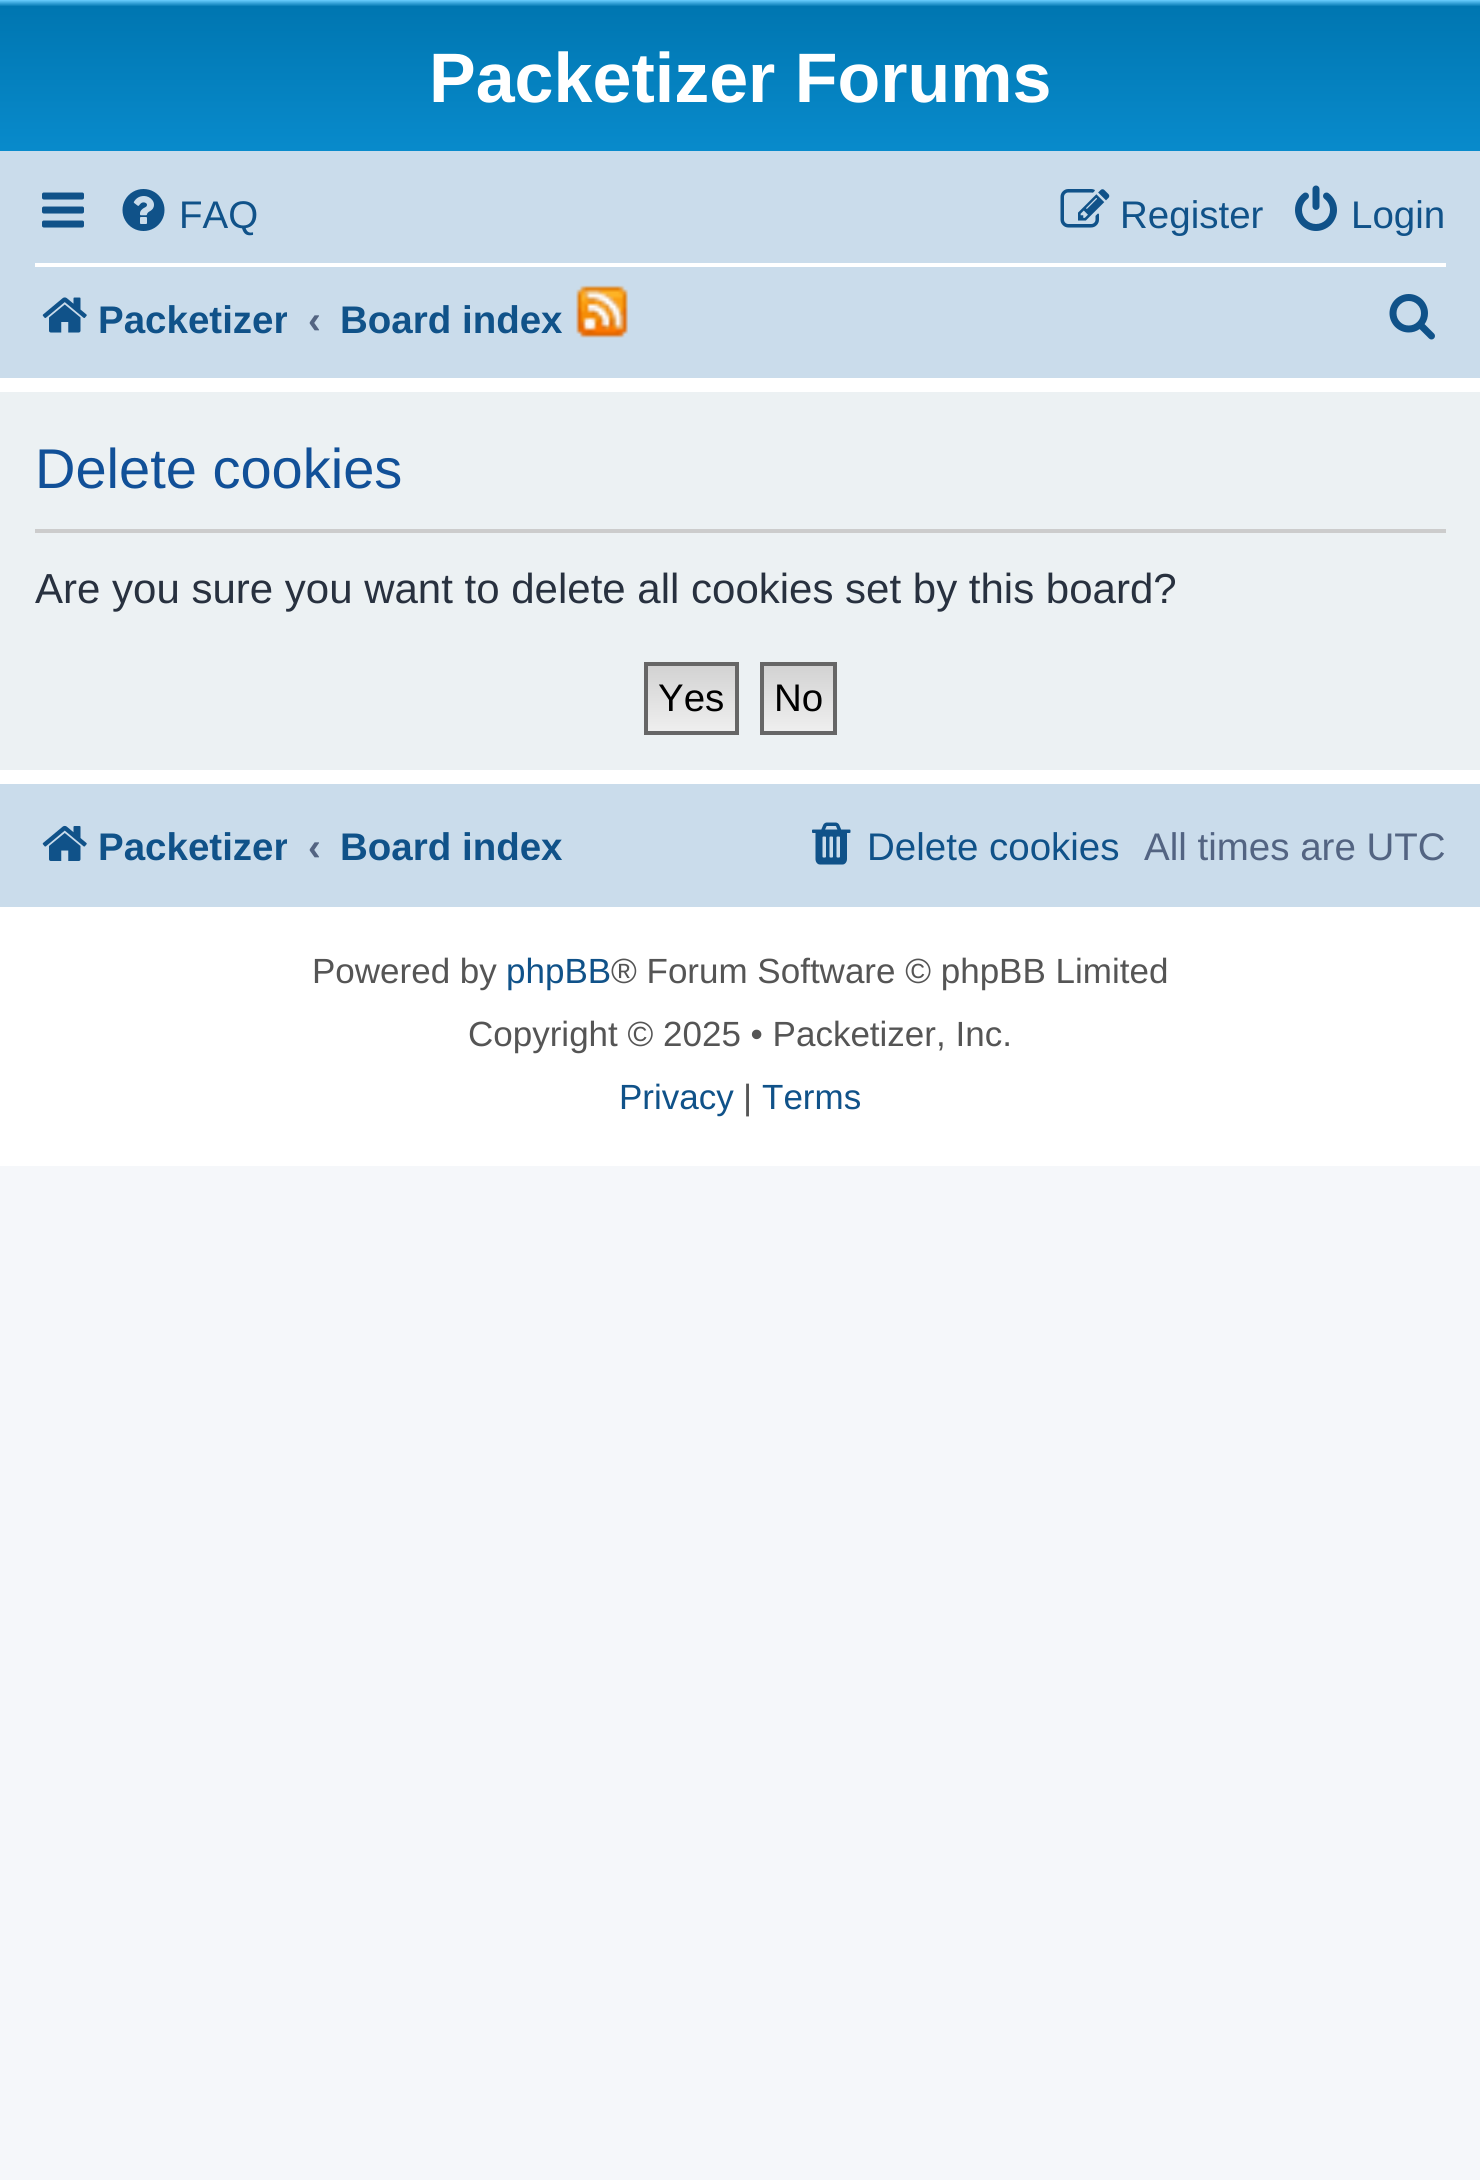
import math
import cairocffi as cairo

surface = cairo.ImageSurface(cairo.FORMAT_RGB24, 1480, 2180)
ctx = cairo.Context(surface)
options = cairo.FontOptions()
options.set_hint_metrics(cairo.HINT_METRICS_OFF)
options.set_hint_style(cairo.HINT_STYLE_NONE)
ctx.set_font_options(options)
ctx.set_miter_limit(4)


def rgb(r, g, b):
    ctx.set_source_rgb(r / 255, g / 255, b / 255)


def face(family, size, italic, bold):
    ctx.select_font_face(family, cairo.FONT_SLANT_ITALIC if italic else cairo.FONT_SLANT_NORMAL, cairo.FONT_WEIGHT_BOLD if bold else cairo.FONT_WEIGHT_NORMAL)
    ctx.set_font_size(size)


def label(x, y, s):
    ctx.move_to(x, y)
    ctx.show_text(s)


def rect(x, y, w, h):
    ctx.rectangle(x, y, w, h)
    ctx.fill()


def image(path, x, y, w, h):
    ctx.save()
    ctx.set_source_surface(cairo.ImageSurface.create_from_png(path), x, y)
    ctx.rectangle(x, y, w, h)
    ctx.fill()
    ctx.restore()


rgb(245, 247, 250)
ctx.paint()
rgb(255, 255, 255)
rect(0, 378, 1480, 788)
gradient = cairo.LinearGradient(740, 0, 740, 322)
gradient.add_color_stop_rgba(0, 0.416, 0.808, 1, 1)
gradient.add_color_stop_rgba(0.02, 0, 0.463, 0.694, 1)
gradient.add_color_stop_rgba(1, 0.071, 0.639, 0.922, 1)
ctx.set_source(gradient)
rect(0, 0, 1480, 151)
face('Liberation Sans', 70, 0, 1)
rgb(255, 255, 255)
label(429, 102, 'Packetizer Forums')
rgb(202, 220, 235)
rect(0, 151, 1480, 227)
image('image0.png', 42, 192, 42, 36)
image('image1.png', 122, 189, 43, 42)
face('Liberation Sans', 38.5, 0, 0)
rgb(16, 82, 137)
label(179, 228, 'FAQ')
image('image2.png', 1060, 189, 50, 39)
label(1120, 228, 'Register')
image('image3.png', 1295, 185, 42, 46)
label(1351, 228, 'Login')
rgb(255, 255, 255)
rect(35, 263, 1411, 4)
image('image4.png', 42, 297, 45, 36)
ctx.save()
ctx.rectangle(35, 277, 252, 84)
ctx.clip()
face('Liberation Sans', 38.5, 0, 1)
rgb(16, 82, 137)
label(98, 333, 'Packetizer')
ctx.restore()
face('Liberation Sans', 38.5, 0, 1)
rgb(83, 100, 130)
label(308, 333, '‹')
rgb(16, 82, 137)
label(340, 333, 'Board index')
image('image5.png', 576, 285, 52, 53)
image('image6.png', 1389, 294, 46, 46)
rgb(236, 241, 243)
rect(0, 392, 1480, 378)
rgb(204, 204, 204)
rect(35, 529, 1411, 4)
face('Liberation Sans', 56, 0, 0)
rgb(17, 80, 152)
label(35, 488, 'Delete cookies')
face('Liberation Sans', 42, 0, 0)
rgb(40, 49, 63)
label(35, 603, 'Are you sure you want to delete all cookies set by this board?')
gradient = cairo.LinearGradient(691, 665, 691, 732)
gradient.add_color_stop_rgba(0, 0.824, 0.824, 0.824, 1)
gradient.add_color_stop_rgba(1, 0.937, 0.937, 0.937, 1)
ctx.set_source(gradient)
rect(648, 666, 87, 65)
ctx.rectangle(646, 664, 91, 69)
rgb(102, 102, 102)
ctx.set_line_width(4)
ctx.stroke()
face('Liberation Sans', 38.5, 0, 0)
rgb(0, 0, 0)
label(658, 711, 'Yes')
gradient = cairo.LinearGradient(798, 665, 798, 732)
gradient.add_color_stop_rgba(0, 0.824, 0.824, 0.824, 1)
gradient.add_color_stop_rgba(1, 0.937, 0.937, 0.937, 1)
ctx.set_source(gradient)
rect(764, 666, 69, 65)
ctx.rectangle(762, 664, 73, 69)
rgb(102, 102, 102)
ctx.stroke()
rgb(0, 0, 0)
label(774, 711, 'No')
rgb(202, 220, 235)
rect(0, 784, 1480, 123)
image('image7.png', 42, 825, 45, 36)
ctx.save()
ctx.rectangle(35, 805, 252, 84)
ctx.clip()
face('Liberation Sans', 38.5, 0, 1)
rgb(16, 82, 137)
label(98, 860, 'Packetizer')
ctx.restore()
face('Liberation Sans', 38.5, 0, 1)
rgb(83, 100, 130)
label(308, 860, '‹')
rgb(16, 82, 137)
label(340, 860, 'Board index')
image('image8.png', 812, 822, 39, 43)
face('Liberation Sans', 38.5, 0, 0)
label(867, 860, 'Delete cookies')
rgb(83, 100, 130)
label(1144, 860, 'All times are UTC')
face('Liberation Sans', 35, 0, 0)
rgb(85, 85, 85)
label(312, 983, 'Powered by')
rgb(16, 82, 137)
label(506, 983, 'phpBB')
rgb(85, 85, 85)
label(611, 983, '® Forum Software © phpBB Limited')
label(468, 1046, 'Copyright © 2025 • Packetizer, Inc.')
rgb(16, 82, 137)
label(619, 1109, 'Privacy')
rgb(85, 85, 85)
label(743, 1109, '|')
rgb(16, 82, 137)
label(762, 1109, 'Terms')
surface.write_to_png('render.png')
